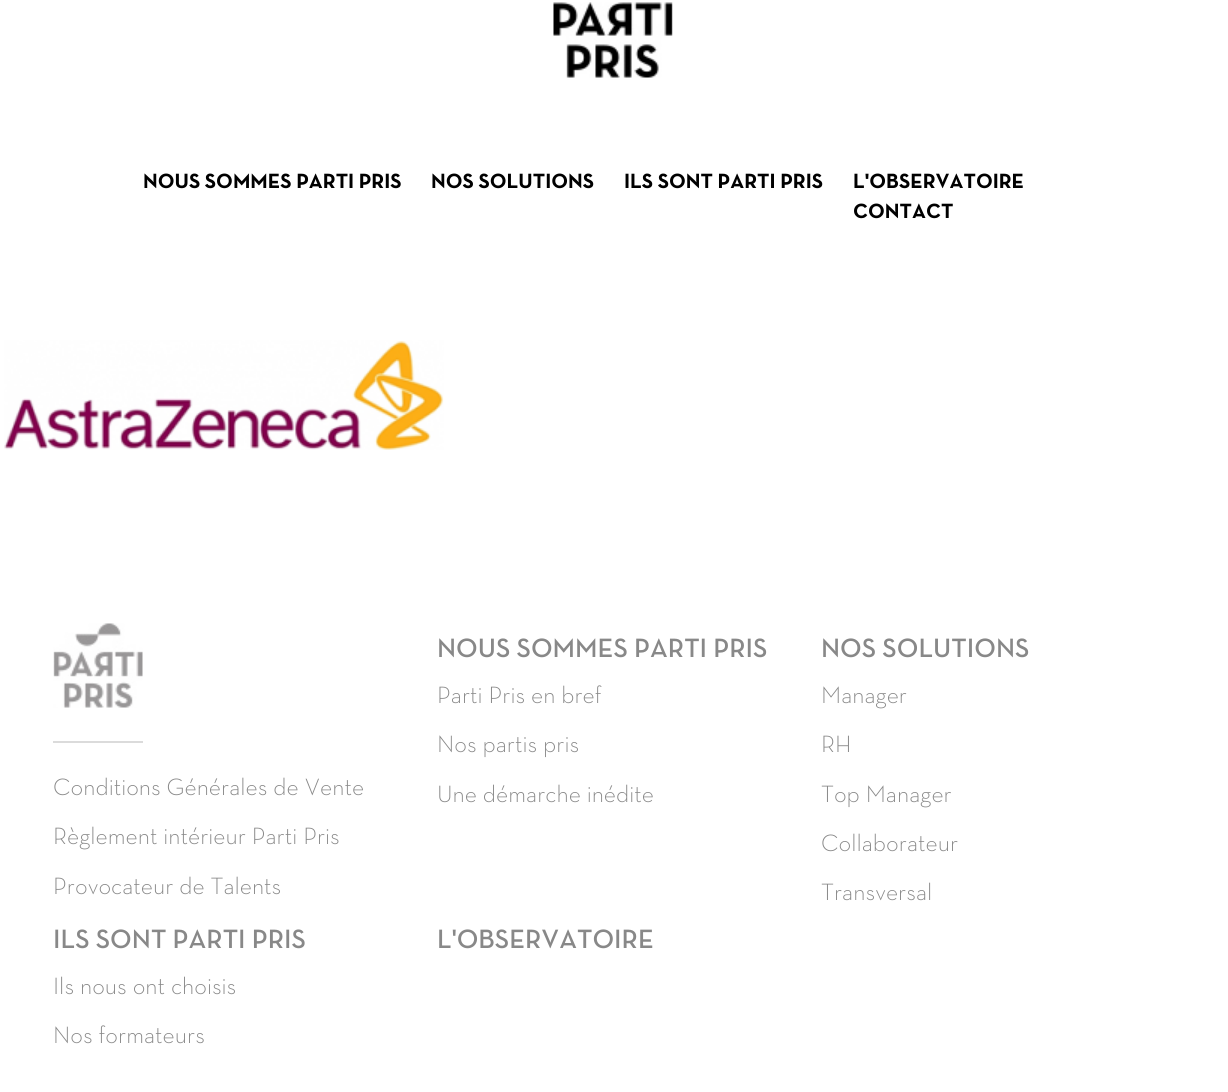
import math
import cairocffi as cairo

surface = cairo.ImageSurface(cairo.FORMAT_RGB24, 1228, 1092)
ctx = cairo.Context(surface)
options = cairo.FontOptions()
options.set_hint_metrics(cairo.HINT_METRICS_OFF)
options.set_hint_style(cairo.HINT_STYLE_NONE)
ctx.set_font_options(options)
ctx.set_miter_limit(4)


def rgb(r, g, b):
    ctx.set_source_rgb(r / 255, g / 255, b / 255)


def face(family, size, italic, bold):
    ctx.select_font_face(family, cairo.FONT_SLANT_ITALIC if italic else cairo.FONT_SLANT_NORMAL, cairo.FONT_WEIGHT_BOLD if bold else cairo.FONT_WEIGHT_NORMAL)
    ctx.set_font_size(size)


def label(x, y, s):
    ctx.move_to(x, y)
    ctx.show_text(s)


def rect(x, y, w, h):
    ctx.rectangle(x, y, w, h)
    ctx.fill()


def image(path, x, y, w, h):
    ctx.save()
    ctx.set_source_surface(cairo.ImageSurface.create_from_png(path), x, y)
    ctx.rectangle(x, y, w, h)
    ctx.fill()
    ctx.restore()


rgb(255, 255, 255)
ctx.paint()
image('image0.png', 553, 2, 120, 76)
face('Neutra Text', 21, 0, 1)
rgb(0, 0, 0)
label(143, 188, 'NOUS SOMMES PARTI PRIS')
label(431, 188, 'NOS SOLUTIONS')
label(624, 188, 'ILS SONT PARTI PRIS')
label(853, 188, 'L\'OBSERVATOIRE')
label(853, 218, 'CONTACT')
image('image1.png', 4, 340, 440, 110)
image('image2.png', 53, 623, 90, 85)
rgb(219, 219, 219)
rect(53, 741, 90, 2)
face('Neutra Text Light', 24, 0, 0)
rgb(136, 136, 136)
label(53, 795, 'Conditions Générales de Vente')
label(53, 844, 'Règlement intérieur Parti Pris')
label(53, 894, 'Provocateur de Talents')
face('Neutra Text Medium', 27, 0, 0)
label(437, 657, 'NOUS SOMMES PARTI PRIS')
face('Neutra Text Light', 24, 0, 0)
label(437, 703, 'Parti Pris en bref')
label(437, 752, 'Nos partis pris')
label(437, 802, 'Une démarche inédite')
face('Neutra Text Medium', 27, 0, 0)
label(821, 657, 'NOS SOLUTIONS')
face('Neutra Text Light', 24, 0, 0)
label(821, 703, 'Manager')
label(821, 752, 'RH')
label(821, 802, 'Top Manager')
label(821, 851, 'Collaborateur')
label(821, 900, 'Transversal')
face('Neutra Text Medium', 27, 0, 0)
label(53, 948, 'ILS SONT PARTI PRIS')
face('Neutra Text Light', 24, 0, 0)
label(53, 994, 'Ils nous ont choisis')
label(53, 1043, 'Nos formateurs')
face('Neutra Text Medium', 27, 0, 0)
label(437, 948, 'L\'OBSERVATOIRE')
surface.write_to_png('render.png')
